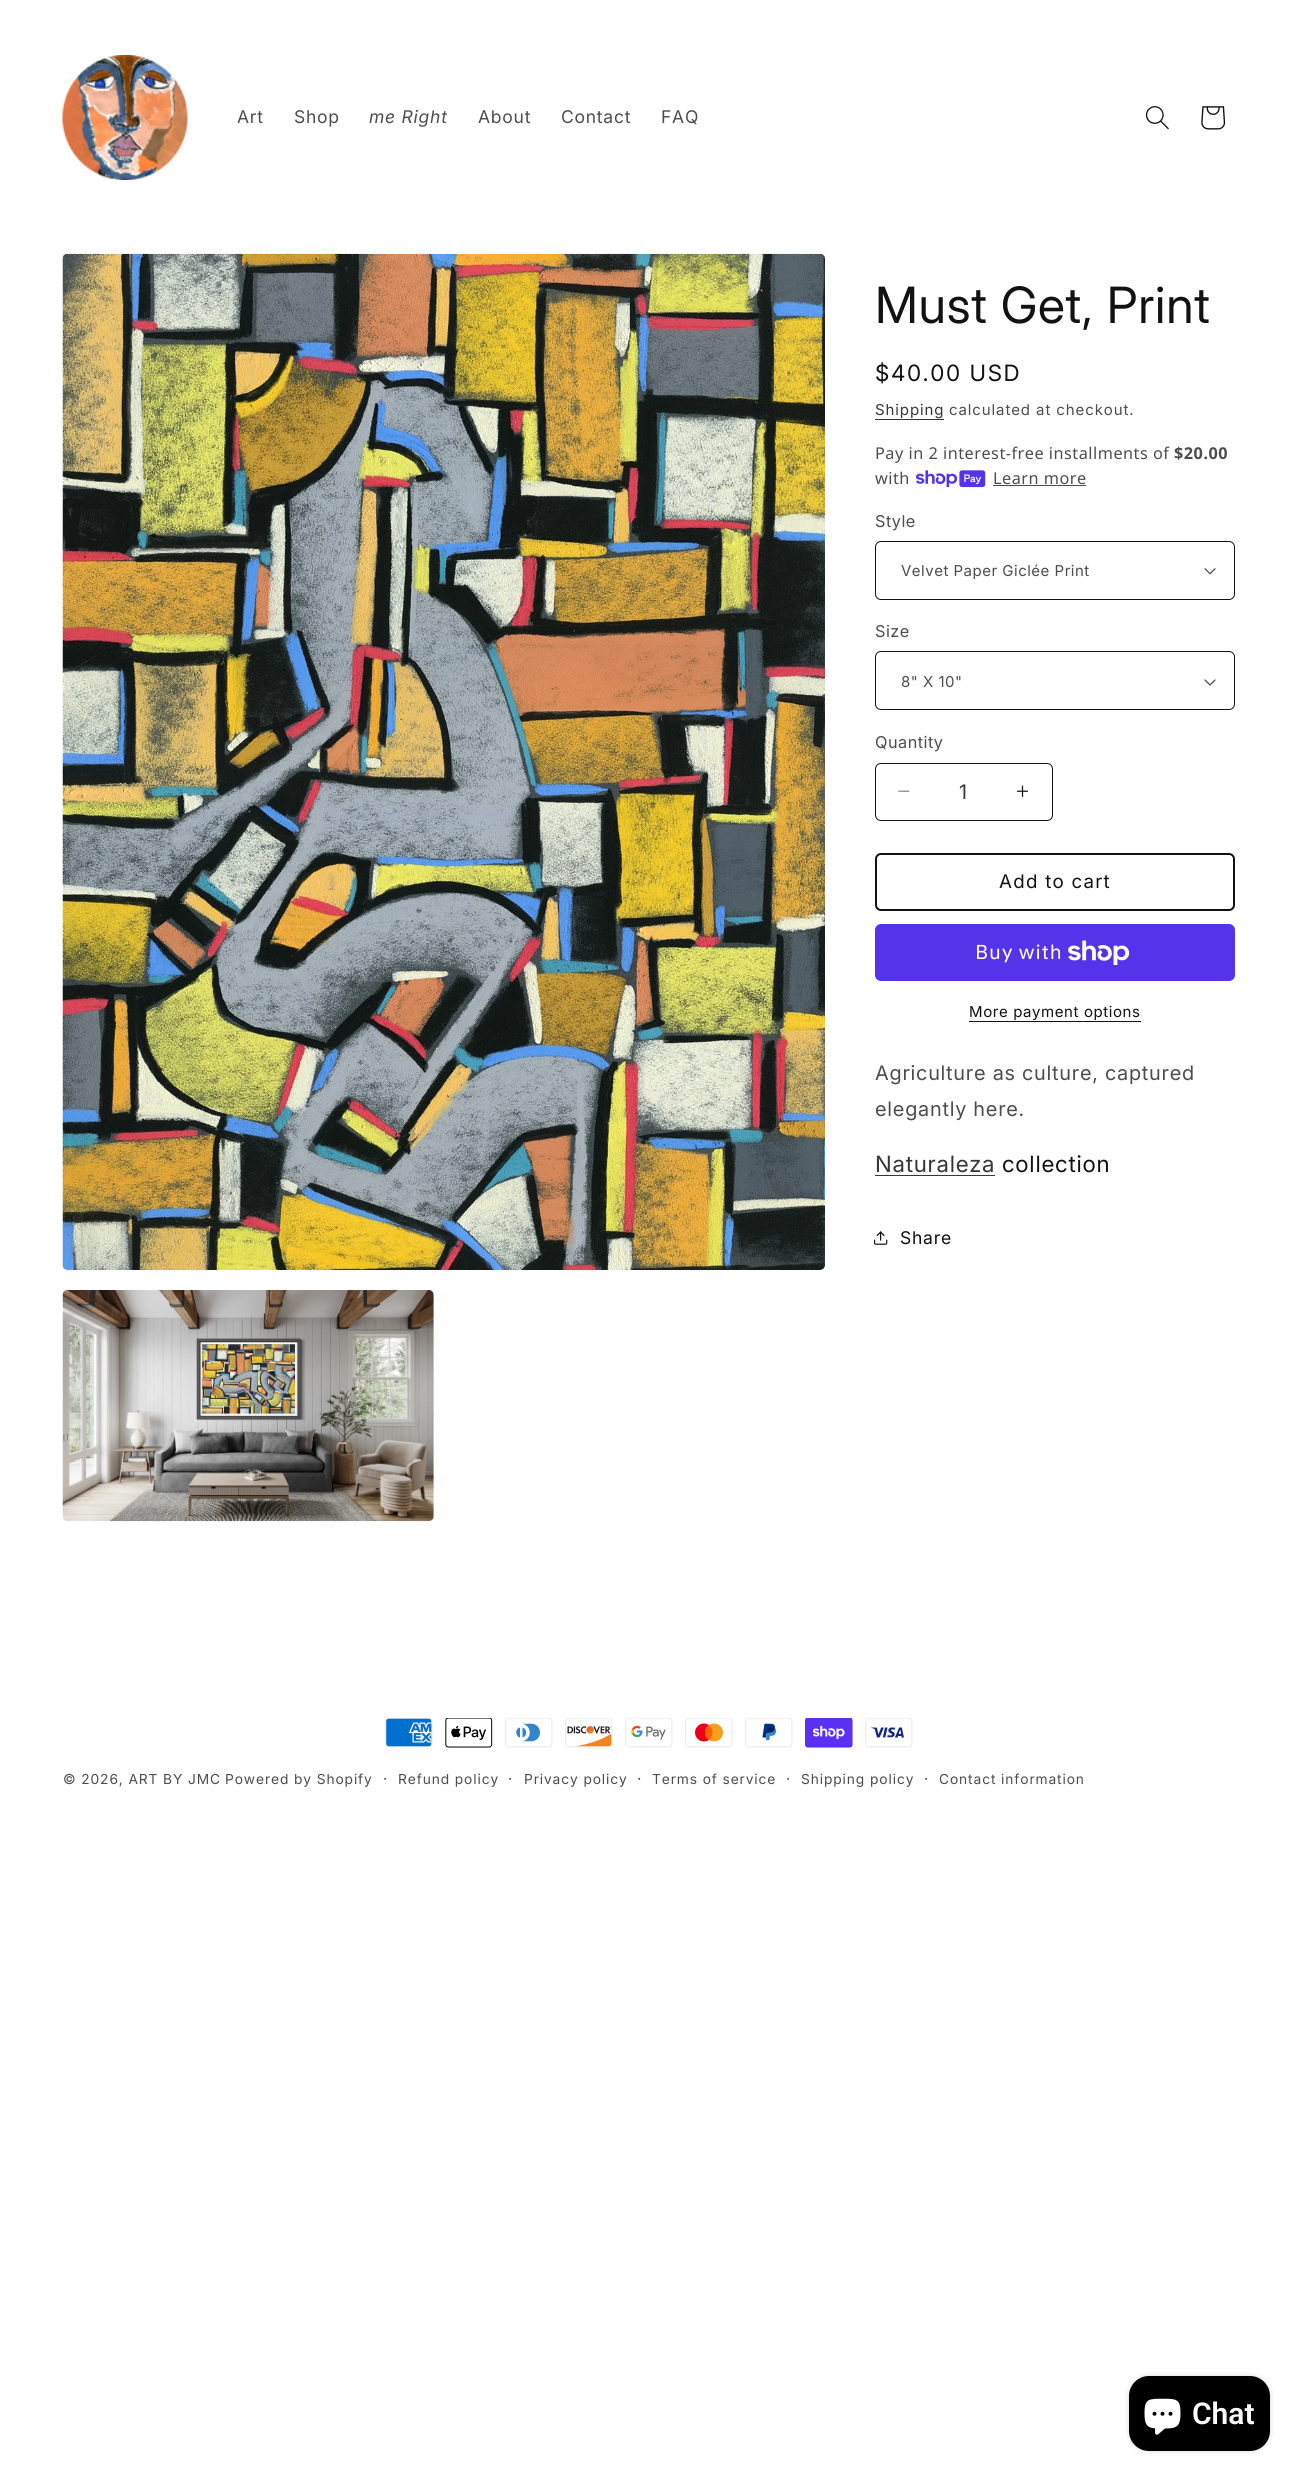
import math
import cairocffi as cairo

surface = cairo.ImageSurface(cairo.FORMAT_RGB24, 1297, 2477)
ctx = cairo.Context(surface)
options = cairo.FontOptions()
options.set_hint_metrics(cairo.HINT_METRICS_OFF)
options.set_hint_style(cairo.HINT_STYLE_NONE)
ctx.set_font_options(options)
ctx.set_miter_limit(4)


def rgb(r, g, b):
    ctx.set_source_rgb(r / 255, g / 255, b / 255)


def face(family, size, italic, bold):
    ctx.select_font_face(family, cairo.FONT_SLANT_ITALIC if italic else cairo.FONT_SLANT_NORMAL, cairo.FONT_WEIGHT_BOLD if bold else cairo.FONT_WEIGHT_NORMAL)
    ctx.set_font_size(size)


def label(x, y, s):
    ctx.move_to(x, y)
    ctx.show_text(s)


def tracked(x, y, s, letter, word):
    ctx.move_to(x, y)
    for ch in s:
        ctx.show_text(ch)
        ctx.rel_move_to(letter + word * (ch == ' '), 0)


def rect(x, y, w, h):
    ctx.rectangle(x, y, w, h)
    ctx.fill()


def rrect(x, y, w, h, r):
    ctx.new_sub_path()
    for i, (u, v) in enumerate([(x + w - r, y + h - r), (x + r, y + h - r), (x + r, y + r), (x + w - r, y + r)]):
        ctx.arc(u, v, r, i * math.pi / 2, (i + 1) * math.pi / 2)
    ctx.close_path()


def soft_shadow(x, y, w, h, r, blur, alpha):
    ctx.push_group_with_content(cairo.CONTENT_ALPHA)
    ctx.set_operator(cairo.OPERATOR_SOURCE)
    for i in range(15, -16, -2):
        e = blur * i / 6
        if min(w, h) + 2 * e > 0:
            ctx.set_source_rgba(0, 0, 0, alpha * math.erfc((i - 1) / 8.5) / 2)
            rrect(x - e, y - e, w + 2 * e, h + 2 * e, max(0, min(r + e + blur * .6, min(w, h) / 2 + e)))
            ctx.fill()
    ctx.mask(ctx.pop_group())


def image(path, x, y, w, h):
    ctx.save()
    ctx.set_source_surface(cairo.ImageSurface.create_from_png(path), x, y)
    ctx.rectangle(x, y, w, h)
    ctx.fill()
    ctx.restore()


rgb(255, 255, 255)
ctx.paint()
image('image0.png', 62, 55, 126, 125)
face('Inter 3', 17.5, 0, 0)
rgb(77, 77, 77)
tracked(237, 123, 'Art', 0.75, 0)
tracked(294, 123, 'Shop', 0.75, 0)
face('Inter', 17.5, 1, 0)
tracked(369, 123, 'me Right', 0.75, 0)
face('Inter 3', 17.5, 0, 0)
tracked(478, 123, 'About', 0.75, 0)
tracked(561, 123, 'Contact', 0.75, 0)
tracked(661, 123, 'FAQ', 0.75, 0)
image('image1.png', 1145, 106, 24, 24)
image('image2.png', 1201, 106, 25, 24)
image('image3.png', 62, 253, 763, 1017)
image('image4.png', 62, 1290, 372, 232)
face('Inter', 50, 0, 0)
rgb(18, 18, 18)
tracked(875, 323, 'Must Get, Print', 0.75, 0)
face('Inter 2', 22.5, 0, 0)
tracked(875, 381, '$40.00 USD', 1.6, 0)
face('Inter 3', 15, 0, 0)
rgb(54, 54, 54)
tracked(875, 415, 'Shipping', 0.9, 0)
rect(875, 419, 69, 1)
rgb(77, 77, 77)
tracked(949, 415, 'calculated at checkout.', 0.9, 0)
face('Noto Sans', 16.25, 0, 0)
tracked(875, 459, 'Pay in 2 interest-free installments of', 0.5, 0)
face('Noto Sans', 16.25, 0, 1)
tracked(1174, 459, '$20.00', 0.5, 0)
face('Noto Sans', 16.25, 0, 0)
tracked(875, 484, 'with', 0.5, 0)
image('image5.png', 916, 470, 70, 18)
tracked(993, 484, 'Learn more', 0.5, 0)
rect(993, 485, 93, 1)
face('Inter 3', 16.25, 0, 0)
tracked(875, 527, 'Style', 0.5, 0)
image('image6.png', 1204, 568, 12, 7)
rrect(875.5, 541.5, 359, 58, 5.5)
rgb(18, 18, 18)
ctx.set_line_width(1)
ctx.stroke()
face('Inter 3', 15, 0, 0)
rgb(77, 77, 77)
tracked(901, 576, 'Velvet Paper Giclée Print', 0.5, 0)
face('Inter 3', 16.25, 0, 0)
tracked(875, 637, 'Size', 0.5, 0)
image('image7.png', 1204, 679, 12, 7)
rrect(875.5, 651.5, 359, 58, 5.5)
rgb(18, 18, 18)
ctx.stroke()
face('Inter 3', 15, 0, 0)
rgb(77, 77, 77)
tracked(901, 687, '8" X 10"', 0.5, 0)
face('Inter 3', 16.25, 0, 0)
tracked(875, 748, 'Quantity', 0.5, 0)
image('image8.png', 898, 790, 12, 2)
image('image9.png', 1016, 785, 13, 12)
rrect(875.5, 763.5, 177, 57, 5.5)
rgb(18, 18, 18)
ctx.stroke()
face('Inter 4', 20, 0, 0)
rgb(54, 54, 54)
label(959, 799, '1')
rrect(876, 854, 358, 56, 5)
rgb(18, 18, 18)
ctx.set_line_width(2)
ctx.stroke()
face('Inter 3', 18.75, 0, 0)
tracked(999, 888, 'Add to cart', 1.25, 0)
rgb(84, 51, 235)
rrect(875, 924, 360, 57, 6)
ctx.fill()
face('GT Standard', 20, 0, 0)
rgb(255, 255, 255)
tracked(975, 959, 'Buy with', 0.75, 0)
image('image10.png', 1068, 940, 62, 25)
face('Inter 3', 15, 0, 0)
rgb(18, 18, 18)
tracked(969, 1017, 'More payment options', 0.6, 0)
rect(969, 1021, 172, 1)
face('Inter 4', 20, 0, 0)
rgb(77, 77, 77)
tracked(875, 1080, 'Agriculture as culture, captured', 0.75, 0)
tracked(875, 1116, 'elegantly here.', 0.75, 0)
face('Inter 2', 22.5, 0, 0)
rgb(54, 54, 54)
tracked(875, 1172, 'Naturaleza', 0.75, 0)
rect(875, 1175, 120, 1)
rgb(18, 18, 18)
tracked(1002, 1172, 'collection', 0.75, 0)
image('image11.png', 873, 1231, 15, 14)
face('Inter 3', 17.5, 0, 0)
tracked(900, 1244, 'Share', 0.75, 0)
image('image12.png', 385, 1718, 48, 30)
image('image13.png', 445, 1718, 48, 30)
image('image14.png', 505, 1718, 48, 30)
image('image15.png', 565, 1718, 48, 30)
image('image16.png', 625, 1718, 48, 30)
image('image17.png', 685, 1718, 48, 30)
image('image18.png', 745, 1718, 48, 30)
image('image19.png', 805, 1718, 48, 30)
image('image20.png', 865, 1718, 48, 30)
face('Inter 3', 13.75, 0, 0)
rgb(77, 77, 77)
tracked(63, 1784, '© 2026, ART BY JMC', 0.9, 0)
tracked(225, 1784, 'Powered by Shopify', 0.9, 0)
face('Inter 3', 15, 0, 0)
tracked(383, 1784, '·', 0.9, 0)
face('Inter 3', 13.75, 0, 0)
tracked(398, 1784, 'Refund policy', 0.9, 0)
face('Inter 3', 15, 0, 0)
tracked(508, 1784, '·', 0.9, 0)
face('Inter 3', 13.75, 0, 0)
tracked(524, 1784, 'Privacy policy', 0.9, 0)
face('Inter 3', 15, 0, 0)
tracked(637, 1784, '·', 0.9, 0)
face('Inter 3', 13.75, 0, 0)
tracked(652, 1784, 'Terms of service', 0.9, 0)
face('Inter 3', 15, 0, 0)
tracked(786, 1784, '·', 0.9, 0)
face('Inter 3', 13.75, 0, 0)
tracked(801, 1784, 'Shipping policy', 0.9, 0)
face('Inter 3', 15, 0, 0)
tracked(924, 1784, '·', 0.9, 0)
face('Inter 3', 13.75, 0, 0)
tracked(939, 1784, 'Contact information', 0.9, 0)
rgb(0, 0, 0)
soft_shadow(1129, 2376, 141, 75, 20, 3, 0.15)
rgb(0, 0, 0)
rrect(1129, 2376, 141, 75, 20)
ctx.fill()
image('image21.png', 1144, 2398, 37, 37)
face('Roboto SemiBold', 30, 0, 0)
rgb(255, 255, 255)
label(1192, 2424, 'Chat')
surface.write_to_png('render.png')
